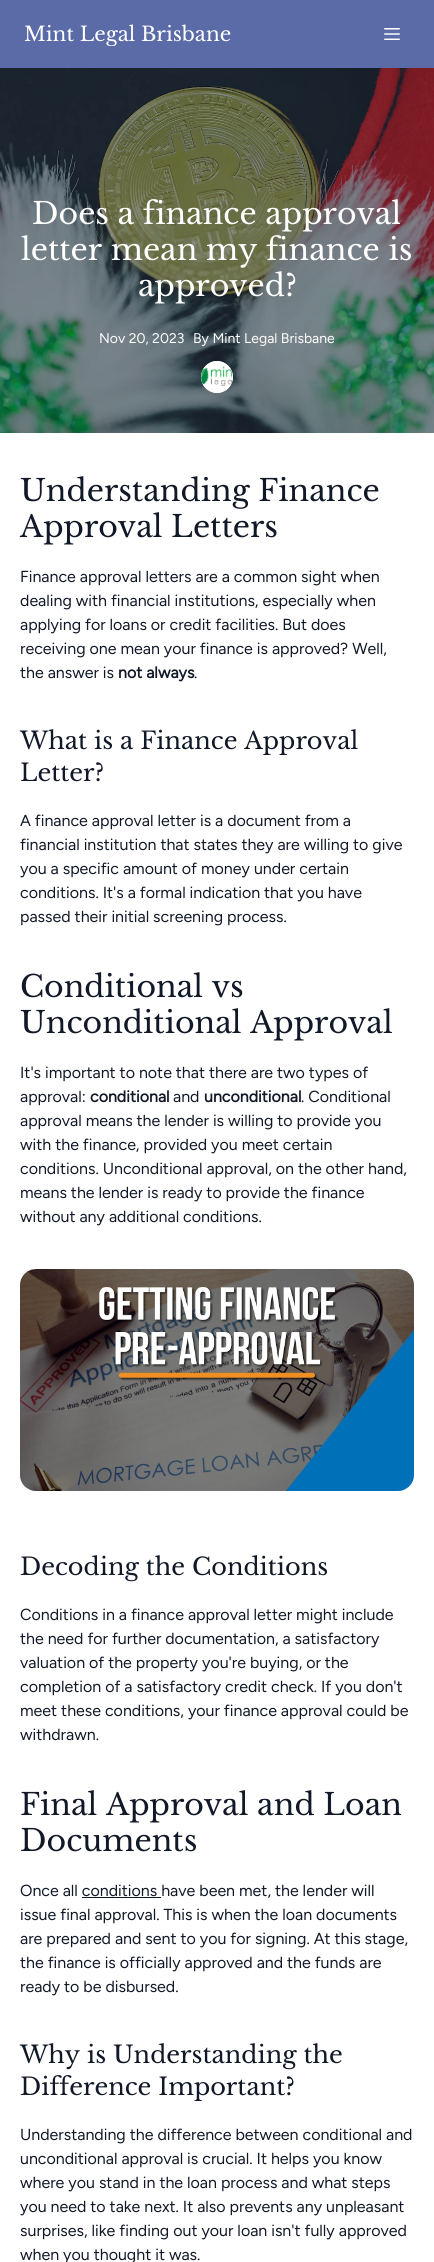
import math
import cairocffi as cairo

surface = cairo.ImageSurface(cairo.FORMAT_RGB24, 434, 2262)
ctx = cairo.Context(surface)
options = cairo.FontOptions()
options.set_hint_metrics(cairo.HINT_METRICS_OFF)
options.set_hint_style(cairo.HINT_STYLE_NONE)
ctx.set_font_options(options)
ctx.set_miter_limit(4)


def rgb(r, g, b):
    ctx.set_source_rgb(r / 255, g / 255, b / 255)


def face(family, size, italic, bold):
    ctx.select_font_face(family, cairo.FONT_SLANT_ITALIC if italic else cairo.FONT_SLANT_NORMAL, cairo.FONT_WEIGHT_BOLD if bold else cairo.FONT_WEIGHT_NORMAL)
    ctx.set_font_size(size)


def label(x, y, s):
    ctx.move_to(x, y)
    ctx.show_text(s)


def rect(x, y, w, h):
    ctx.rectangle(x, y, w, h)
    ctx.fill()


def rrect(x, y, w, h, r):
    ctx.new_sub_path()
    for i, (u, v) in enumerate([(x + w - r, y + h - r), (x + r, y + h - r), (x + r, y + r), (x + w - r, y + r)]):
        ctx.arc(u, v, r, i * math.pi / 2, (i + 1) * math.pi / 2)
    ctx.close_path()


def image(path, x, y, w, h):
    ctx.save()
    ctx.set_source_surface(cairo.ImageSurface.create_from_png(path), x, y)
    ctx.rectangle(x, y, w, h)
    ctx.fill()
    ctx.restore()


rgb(255, 255, 255)
ctx.paint()
rgb(91, 107, 167)
rect(0, 0, 434, 68)
ctx.save()
ctx.rectangle(24, 22, 215, 24)
ctx.clip()
face('Libre Baskerville', 20, 0, 0)
rgb(255, 255, 255)
label(24, 41, 'Mint Legal Brisbane')
ctx.restore()
image('image0.png', 384, 28, 16, 12)
image('image1.png', 0, 68, 434, 365)
face('Libre Baskerville', 30, 0, 0)
rgb(255, 255, 255)
label(32, 224, 'Does a finance approval')
label(21, 260, 'letter mean my finance is')
label(138, 296, 'approved?')
face('Figtree Light', 14, 0, 0)
label(99, 343, 'Nov 20, 2023')
label(193, 343, 'By Mint Legal Brisbane')
ctx.new_path()
ctx.arc(217, 377, 16, 0, 2 * math.pi)
ctx.fill()
image('image2.png', 201, 361, 32, 32)
face('Libre Baskerville', 30, 0, 0)
rgb(17, 24, 39)
label(20, 501, 'Understanding Finance')
label(20, 537, 'Approval Letters')
face('Figtree Light', 16, 0, 0)
label(20, 582, 'Finance approval letters are a common sight when')
label(20, 606, 'dealing with financial institutions, especially when')
label(20, 630, 'applying for loans or credit facilities. But does')
label(20, 654, 'receiving one mean your finance is approved? Well,')
label(20, 678, 'the answer is')
face('Figtree', 16, 0, 1)
label(118, 678, 'not always')
face('Figtree Light', 16, 0, 0)
label(194, 678, '.')
face('Libre Baskerville', 24, 0, 0)
label(20, 749, 'What is a Finance Approval')
label(20, 781, 'Letter?')
face('Figtree Light', 16, 0, 0)
label(20, 826, 'A finance approval letter is a document from a')
label(20, 850, 'financial institution that states they are willing to give')
label(20, 874, 'you a specific amount of money under certain')
label(20, 898, 'conditions. It\'s a formal indication that you have')
label(20, 922, 'passed their initial screening process.')
face('Libre Baskerville', 30, 0, 0)
label(20, 997, 'Conditional vs')
label(20, 1033, 'Unconditional Approval')
face('Figtree Light', 16, 0, 0)
label(20, 1078, 'It\'s important to note that there are two types of')
label(20, 1102, 'approval:')
face('Figtree', 16, 0, 1)
label(90, 1102, 'conditional')
face('Figtree Light', 16, 0, 0)
label(173, 1102, 'and')
face('Figtree', 16, 0, 1)
label(204, 1102, 'unconditional')
face('Figtree Light', 16, 0, 0)
label(301, 1102, '. Conditional')
label(20, 1126, 'approval means the lender is willing to provide you')
label(20, 1150, 'with the finance, provided you meet certain')
label(20, 1174, 'conditions. Unconditional approval, on the other hand,')
label(20, 1198, 'means the lender is ready to provide the finance')
label(20, 1222, 'without any additional conditions.')
rgb(243, 244, 246)
rrect(20, 1269, 394, 222, 16)
ctx.fill()
image('image3.png', 20, 1269, 394, 222)
face('Libre Baskerville', 24, 0, 0)
rgb(17, 24, 39)
label(20, 1575, 'Decoding the Conditions')
face('Figtree Light', 16, 0, 0)
label(20, 1620, 'Conditions in a finance approval letter might include')
label(20, 1644, 'the need for further documentation, a satisfactory')
label(20, 1668, 'valuation of the property you\'re buying, or the')
label(20, 1692, 'completion of a satisfactory credit check. If you don\'t')
label(20, 1716, 'meet these conditions, your finance approval could be')
label(20, 1740, 'withdrawn.')
face('Libre Baskerville', 30, 0, 0)
label(20, 1815, 'Final Approval and Loan')
label(20, 1851, 'Documents')
face('Figtree Light', 16, 0, 0)
label(20, 1896, 'Once all conditions have been met, the lender will')
rect(82, 1897, 79, 1)
label(20, 1920, 'issue final approval. This is when the loan documents')
label(20, 1944, 'are prepared and sent to you for signing. At this stage,')
label(20, 1968, 'the finance is officially approved and the funds are')
label(20, 1992, 'ready to be disbursed.')
face('Libre Baskerville', 24, 0, 0)
label(20, 2063, 'Why is Understanding the')
label(20, 2095, 'Difference Important?')
face('Figtree Light', 16, 0, 0)
label(20, 2140, 'Understanding the difference between conditional and')
label(20, 2164, 'unconditional approval is crucial. It helps you know')
label(20, 2188, 'where you stand in the loan process and what steps')
label(20, 2212, 'you need to take next. It also prevents any unpleasant')
label(20, 2236, 'surprises, like finding out your loan isn\'t fully approved')
label(20, 2260, 'when you thought it was.')
surface.write_to_png('render.png')
